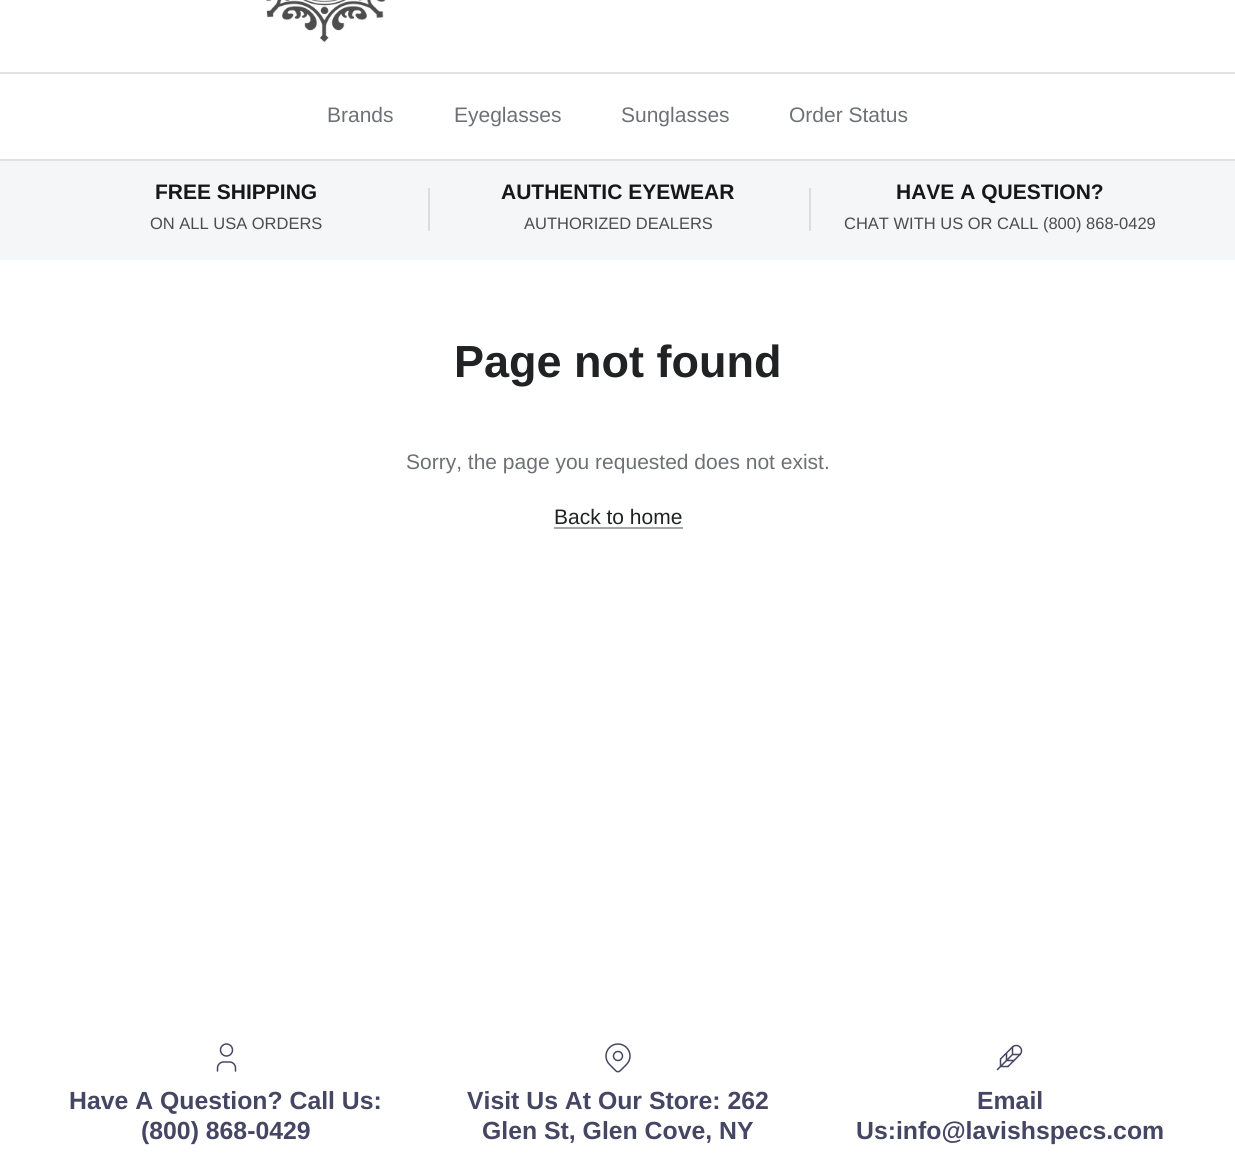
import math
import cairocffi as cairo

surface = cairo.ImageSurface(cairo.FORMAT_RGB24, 1235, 1160)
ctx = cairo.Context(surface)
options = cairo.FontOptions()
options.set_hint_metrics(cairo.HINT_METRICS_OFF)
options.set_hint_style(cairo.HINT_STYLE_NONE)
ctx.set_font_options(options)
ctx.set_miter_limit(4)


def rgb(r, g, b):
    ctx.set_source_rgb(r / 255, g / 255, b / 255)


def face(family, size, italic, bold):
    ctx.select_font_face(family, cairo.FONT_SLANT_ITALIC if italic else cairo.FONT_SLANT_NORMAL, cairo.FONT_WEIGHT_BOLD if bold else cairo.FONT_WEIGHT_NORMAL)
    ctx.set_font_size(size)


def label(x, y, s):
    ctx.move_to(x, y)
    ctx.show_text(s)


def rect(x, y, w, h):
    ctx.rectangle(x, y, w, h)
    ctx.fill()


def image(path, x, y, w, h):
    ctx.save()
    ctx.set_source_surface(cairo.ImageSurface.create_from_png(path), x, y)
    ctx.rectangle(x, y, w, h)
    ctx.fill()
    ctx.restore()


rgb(255, 255, 255)
ctx.paint()
rgb(226, 226, 226)
rect(0, 72, 1235, 2)
image('image0.png', 266, 0, 120, 42)
rect(0, 159, 1235, 2)
face('Liberation Sans', 21, 0, 0)
rgb(109, 113, 117)
label(327, 122, 'Brands')
label(454, 122, 'Eyeglasses')
label(621, 122, 'Sunglasses')
label(789, 122, 'Order Status')
rgb(244, 246, 248)
rect(0, 161, 1235, 99)
face('Liberation Sans', 21, 0, 1)
rgb(23, 23, 23)
label(155, 199, 'FREE SHIPPING')
face('Liberation Sans', 16.5, 0, 0)
rgb(76, 76, 75)
label(150, 229, 'ON ALL USA ORDERS')
rgb(219, 221, 222)
rect(428, 188, 2, 43)
face('Liberation Sans', 21, 0, 1)
rgb(23, 23, 23)
label(501, 199, 'AUTHENTIC EYEWEAR')
face('Liberation Sans', 16.5, 0, 0)
rgb(76, 76, 75)
label(524, 229, 'AUTHORIZED DEALERS')
rgb(219, 221, 222)
rect(809, 188, 2, 43)
face('Liberation Sans', 21, 0, 1)
rgb(23, 23, 23)
label(896, 199, 'HAVE A QUESTION?')
face('Liberation Sans', 16.5, 0, 0)
rgb(76, 76, 75)
label(844, 229, 'CHAT WITH US OR CALL (800) 868-0429')
face('Liberation Sans', 45, 0, 1)
rgb(32, 34, 35)
label(454, 377, 'Page not found')
face('Liberation Sans', 21, 0, 0)
rgb(109, 113, 117)
label(406, 469, 'Sorry, the page you requested does not exist.')
rgb(32, 34, 35)
label(554, 524, 'Back to home')
rgb(166, 167, 167)
rect(554, 527, 129, 2)
image('image1.png', 216, 1043, 21, 29)
face('Liberation Sans', 24.8, 0, 1)
rgb(69, 69, 100)
label(69, 1109, 'Have A Question? Call Us:')
label(141, 1139, '(800) 868-0429')
image('image2.png', 605, 1043, 26, 30)
label(467, 1109, 'Visit Us At Our Store: 262')
label(482, 1139, 'Glen St, Glen Cove, NY')
image('image3.png', 996, 1044, 27, 27)
label(977, 1109, 'Email')
label(856, 1139, 'Us:info@lavishspecs.com')
surface.write_to_png('render.png')
